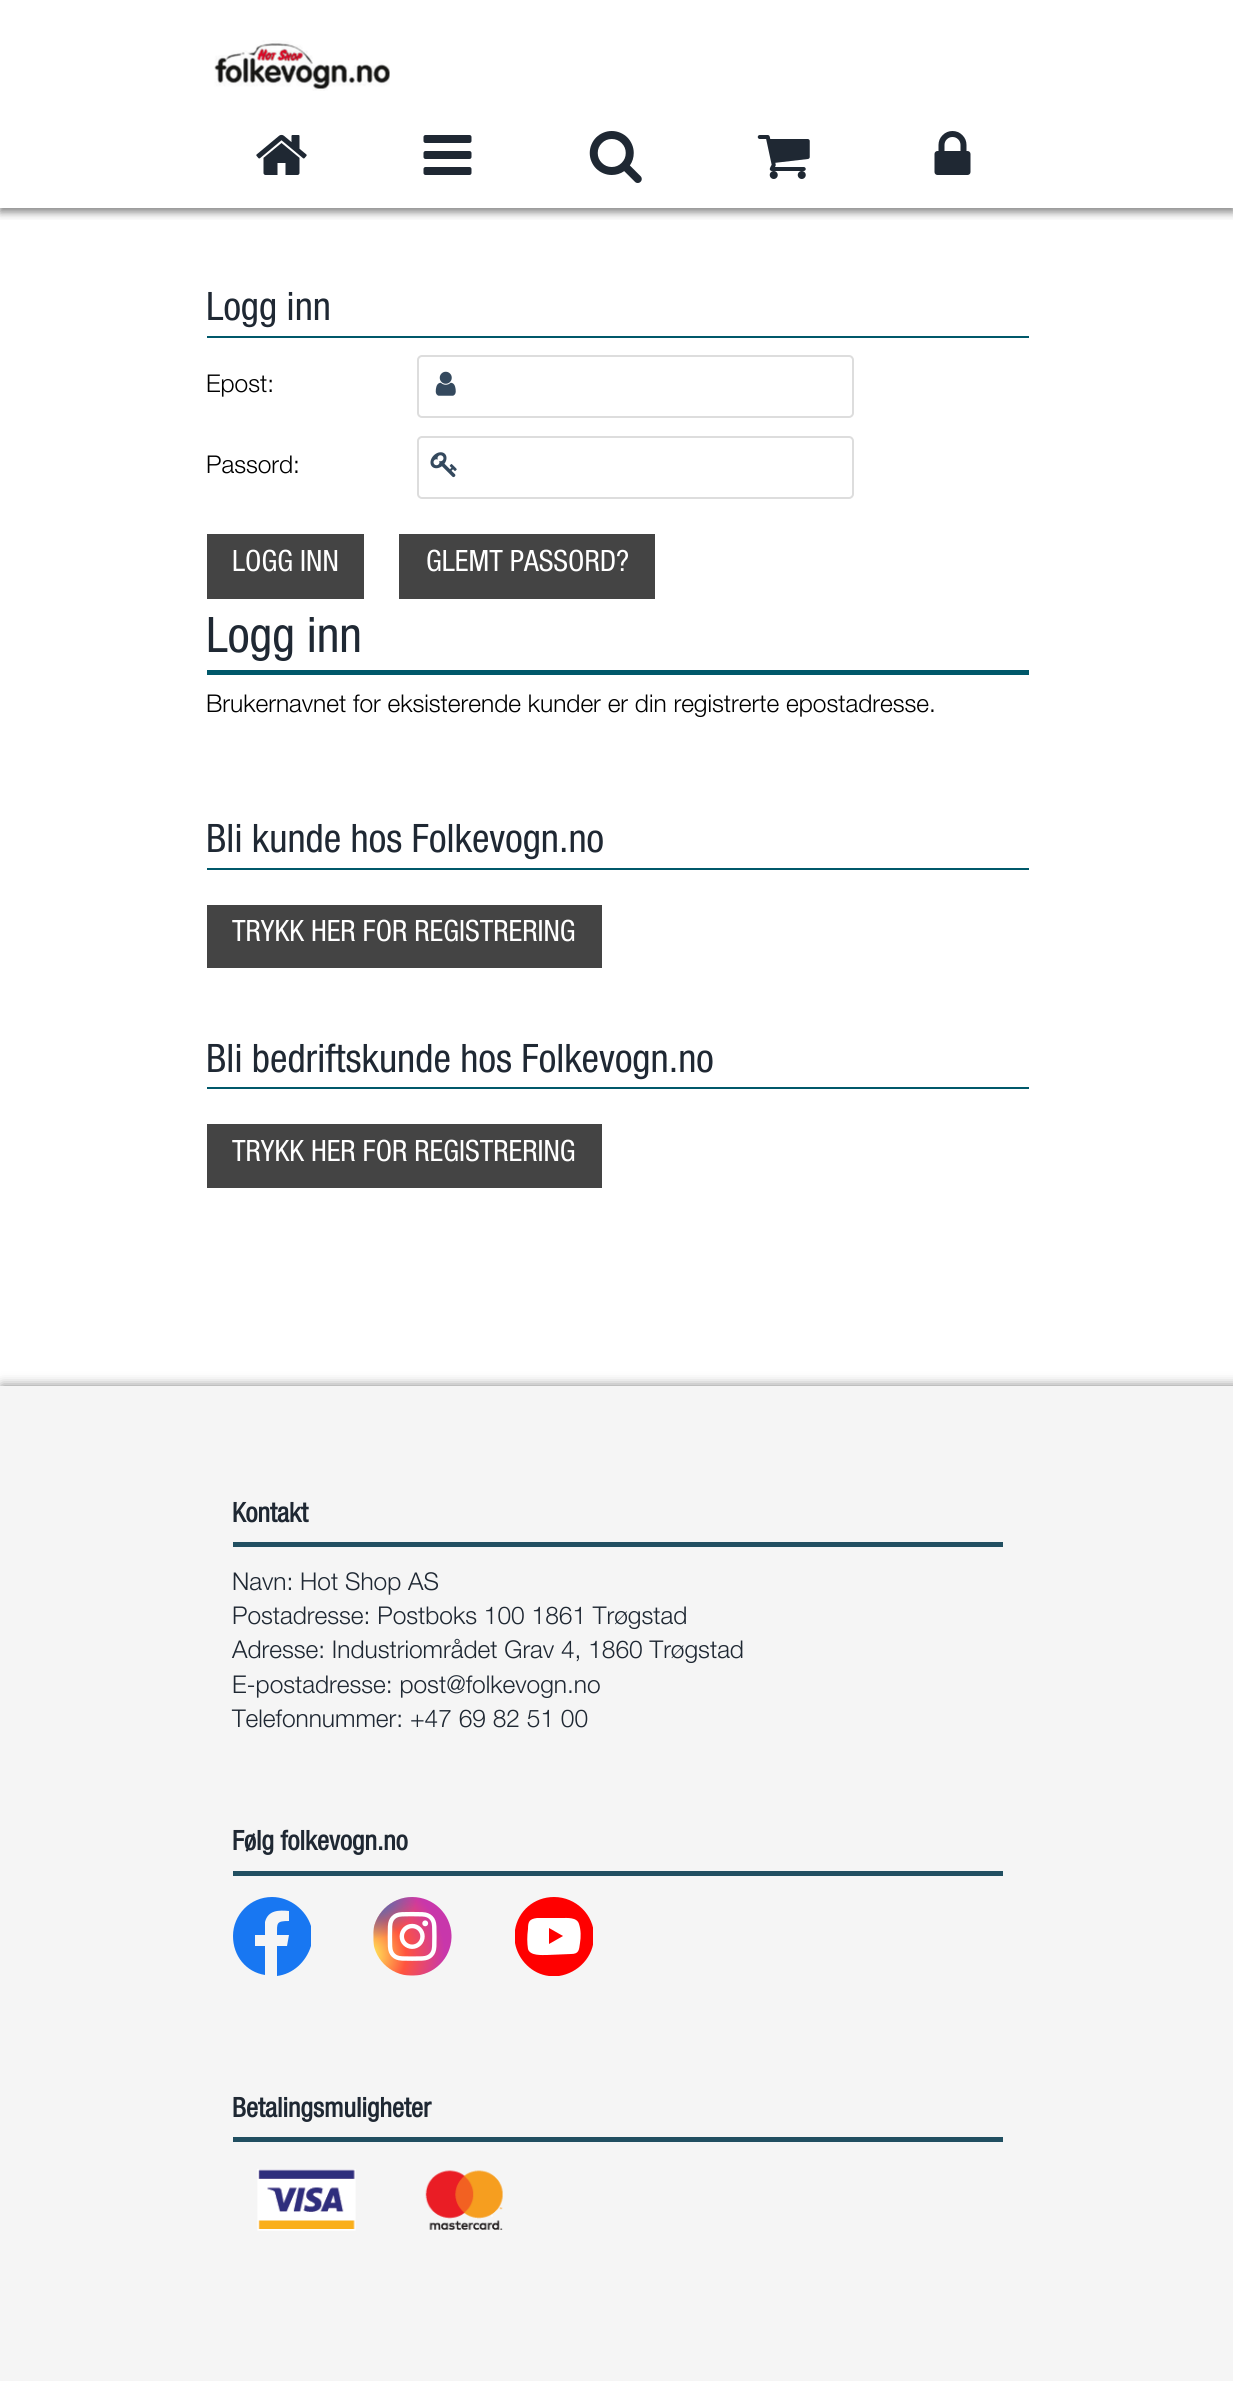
import math
import cairocffi as cairo

surface = cairo.ImageSurface(cairo.FORMAT_RGB24, 1233, 2381)
ctx = cairo.Context(surface)
options = cairo.FontOptions()
options.set_hint_metrics(cairo.HINT_METRICS_OFF)
options.set_hint_style(cairo.HINT_STYLE_NONE)
ctx.set_font_options(options)
ctx.set_miter_limit(4)


def rgb(r, g, b):
    ctx.set_source_rgb(r / 255, g / 255, b / 255)


def face(family, size, italic, bold):
    ctx.select_font_face(family, cairo.FONT_SLANT_ITALIC if italic else cairo.FONT_SLANT_NORMAL, cairo.FONT_WEIGHT_BOLD if bold else cairo.FONT_WEIGHT_NORMAL)
    ctx.set_font_size(size)


def label(x, y, s):
    ctx.move_to(x, y)
    ctx.show_text(s)


def rect(x, y, w, h):
    ctx.rectangle(x, y, w, h)
    ctx.fill()


def rrect(x, y, w, h, r):
    ctx.new_sub_path()
    for i, (u, v) in enumerate([(x + w - r, y + h - r), (x + r, y + h - r), (x + r, y + r), (x + w - r, y + r)]):
        ctx.arc(u, v, r, i * math.pi / 2, (i + 1) * math.pi / 2)
    ctx.close_path()


def soft_shadow(x, y, w, h, r, blur, alpha):
    ctx.push_group_with_content(cairo.CONTENT_ALPHA)
    ctx.set_operator(cairo.OPERATOR_SOURCE)
    for i in range(15, -16, -2):
        e = blur * i / 6
        if min(w, h) + 2 * e > 0:
            ctx.set_source_rgba(0, 0, 0, alpha * math.erfc((i - 1) / 8.5) / 2)
            rrect(x - e, y - e, w + 2 * e, h + 2 * e, max(0, min(r + e + blur * .6, min(w, h) / 2 + e)))
            ctx.fill()
    ctx.mask(ctx.pop_group())


def image(path, x, y, w, h):
    ctx.save()
    ctx.set_source_surface(cairo.ImageSurface.create_from_png(path), x, y)
    ctx.rectangle(x, y, w, h)
    ctx.fill()
    ctx.restore()


rgb(255, 255, 255)
ctx.paint()
ctx.save()
ctx.rectangle(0, 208, 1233, 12)
ctx.clip()
rgb(0, 0, 0)
soft_shadow(0, 4, 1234, 208, 0, 4.5, 0.5)
ctx.restore()
image('image0.png', 214, 40, 176, 51)
image('image1.png', 256, 134, 51, 41)
image('image2.png', 423, 135, 49, 40)
image('image3.png', 589, 131, 53, 52)
image('image4.png', 757, 135, 53, 44)
image('image5.png', 934, 131, 37, 44)
rgb(0, 88, 106)
rect(207, 336, 822, 2)
face('Helvetica Neue', 39.25, 0, 0)
rgb(31, 40, 51)
label(206, 320, 'Logg inn')
face('Helvetica Neue Light', 24.5, 0, 0)
rgb(0, 0, 0)
label(206, 392, 'Epost:')
rrect(418, 356, 435, 61, 4)
rgb(221, 221, 221)
ctx.stroke()
image('image6.png', 435, 371, 21, 25)
rgb(0, 0, 0)
label(206, 473, 'Passord:')
rrect(418, 437, 435, 61, 4)
rgb(221, 221, 221)
ctx.stroke()
image('image7.png', 430, 452, 27, 26)
rgb(68, 68, 68)
rect(207, 534, 157, 65)
face('Helvetica Neue', 29.4, 0, 0)
rgb(255, 255, 255)
label(232, 571, 'LOGG INN')
rgb(68, 68, 68)
rect(399, 534, 256, 65)
rgb(255, 255, 255)
label(426, 571, 'GLEMT PASSORD?')
rgb(0, 88, 106)
rect(207, 670, 822, 5)
face('Helvetica Neue', 49, 0, 0)
rgb(31, 40, 51)
label(206, 652, 'Logg inn')
face('Helvetica Neue Light', 24.5, 0, 0)
rgb(0, 0, 0)
label(206, 712, 'Brukernavnet for eksisterende kunder er din registrerte epostadresse.')
rgb(0, 88, 106)
rect(207, 868, 822, 2)
face('Helvetica Neue', 39.25, 0, 0)
rgb(31, 40, 51)
label(206, 852, 'Bli kunde hos Folkevogn.no')
rgb(68, 68, 68)
rect(207, 905, 395, 63)
face('Helvetica Neue', 29.4, 0, 0)
rgb(255, 255, 255)
label(232, 941, 'TRYKK HER FOR REGISTRERING')
rgb(0, 88, 106)
rect(207, 1087, 822, 2)
face('Helvetica Neue', 39.25, 0, 0)
rgb(31, 40, 51)
label(206, 1072, 'Bli bedriftskunde hos Folkevogn.no')
rgb(68, 68, 68)
rect(207, 1124, 395, 64)
face('Helvetica Neue', 29.4, 0, 0)
rgb(255, 255, 255)
label(232, 1161, 'TRYKK HER FOR REGISTRERING')
rgb(0, 0, 0)
soft_shadow(2, 1386, 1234, 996, 0, 6, 0.5)
rgb(245, 245, 245)
rect(0, 1386, 1233, 995)
rgb(33, 79, 97)
rect(233, 1542, 770, 5)
face('Helvetica Neue', 27, 0, 1)
rgb(31, 40, 51)
label(232, 1522, 'Kontakt')
face('Helvetica Neue Light', 24.5, 0, 0)
label(232, 1590, 'Navn: Hot Shop AS')
label(232, 1624, 'Postadresse: Postboks 100 1861 Trøgstad')
label(232, 1658, 'Adresse: Industriområdet Grav 4, 1860 Trøgstad')
label(232, 1693, 'E-postadresse: post@folkevogn.no')
label(232, 1727, 'Telefonnummer: +47 69 82 51 00')
rgb(33, 79, 97)
rect(233, 1871, 770, 5)
face('Helvetica Neue', 27, 0, 1)
rgb(31, 40, 51)
label(232, 1850, 'Følg folkevogn.no')
rgb(24, 119, 242)
ctx.set_fill_rule(cairo.FILL_RULE_EVEN_ODD)
ctx.new_path()
ctx.move_to(311, 1926)
ctx.line_to(311, 1946)
ctx.curve_to(306, 1962, 293, 1974, 277, 1976)
ctx.line_to(277, 1946)
ctx.line_to(287, 1946)
ctx.line_to(289, 1935)
ctx.line_to(277, 1935)
ctx.curve_to(277, 1923, 276, 1921, 289, 1921)
ctx.line_to(289, 1911)
ctx.curve_to(279, 1910, 268, 1910, 265, 1922)
ctx.line_to(265, 1935)
ctx.line_to(255, 1935)
ctx.line_to(255, 1946)
ctx.line_to(265, 1946)
ctx.line_to(265, 1975)
ctx.curve_to(246, 1972, 233, 1956, 233, 1936)
ctx.curve_to(233, 1915, 250, 1897, 272, 1897)
ctx.curve_to(290, 1897, 306, 1910, 311, 1926)
ctx.close_path()
ctx.move_to(267, 1976)
ctx.line_to(265, 1975)
ctx.close_path()
ctx.move_to(277, 1976)
ctx.line_to(277, 1976)
ctx.close_path()
ctx.fill()
image('image8.png', 373, 1897, 79, 79)
ctx.save()
ctx.set_fill_rule(cairo.FILL_RULE_WINDING)
ctx.rectangle(515, 1897, 78, 79)
ctx.clip()
rgb(255, 0, 0)
ctx.new_path()
ctx.move_to(554, 1897)
ctx.curve_to(576, 1897, 594, 1915, 594, 1936)
ctx.curve_to(594, 1957, 578, 1973, 559, 1976)
ctx.line_to(549, 1976)
ctx.curve_to(532, 1974, 518, 1960, 515, 1943)
ctx.line_to(515, 1930)
ctx.curve_to(518, 1911, 534, 1897, 554, 1897)
ctx.close_path()
ctx.fill()
ctx.restore()
rgb(255, 255, 255)
ctx.set_fill_rule(cairo.FILL_RULE_WINDING)
ctx.new_path()
ctx.move_to(579, 1924)
ctx.curve_to(577, 1917, 567, 1918, 562, 1918)
ctx.line_to(537, 1918)
ctx.curve_to(529, 1919, 528, 1922, 528, 1929)
ctx.curve_to(527, 1936, 527, 1943, 528, 1949)
ctx.curve_to(530, 1956, 542, 1955, 547, 1955)
ctx.line_to(571, 1954)
ctx.curve_to(579, 1954, 579, 1950, 580, 1943)
ctx.curve_to(581, 1937, 581, 1930, 579, 1924)
ctx.close_path()
ctx.move_to(549, 1944)
ctx.line_to(549, 1928)
ctx.line_to(563, 1936)
ctx.close_path()
ctx.fill()
rgb(33, 79, 97)
rect(233, 2137, 770, 5)
rgb(31, 40, 51)
label(232, 2117, 'Betalingsmuligheter')
image('image9.png', 257, 2169, 99, 62)
image('image10.png', 425, 2170, 78, 60)
surface.write_to_png('render.png')
